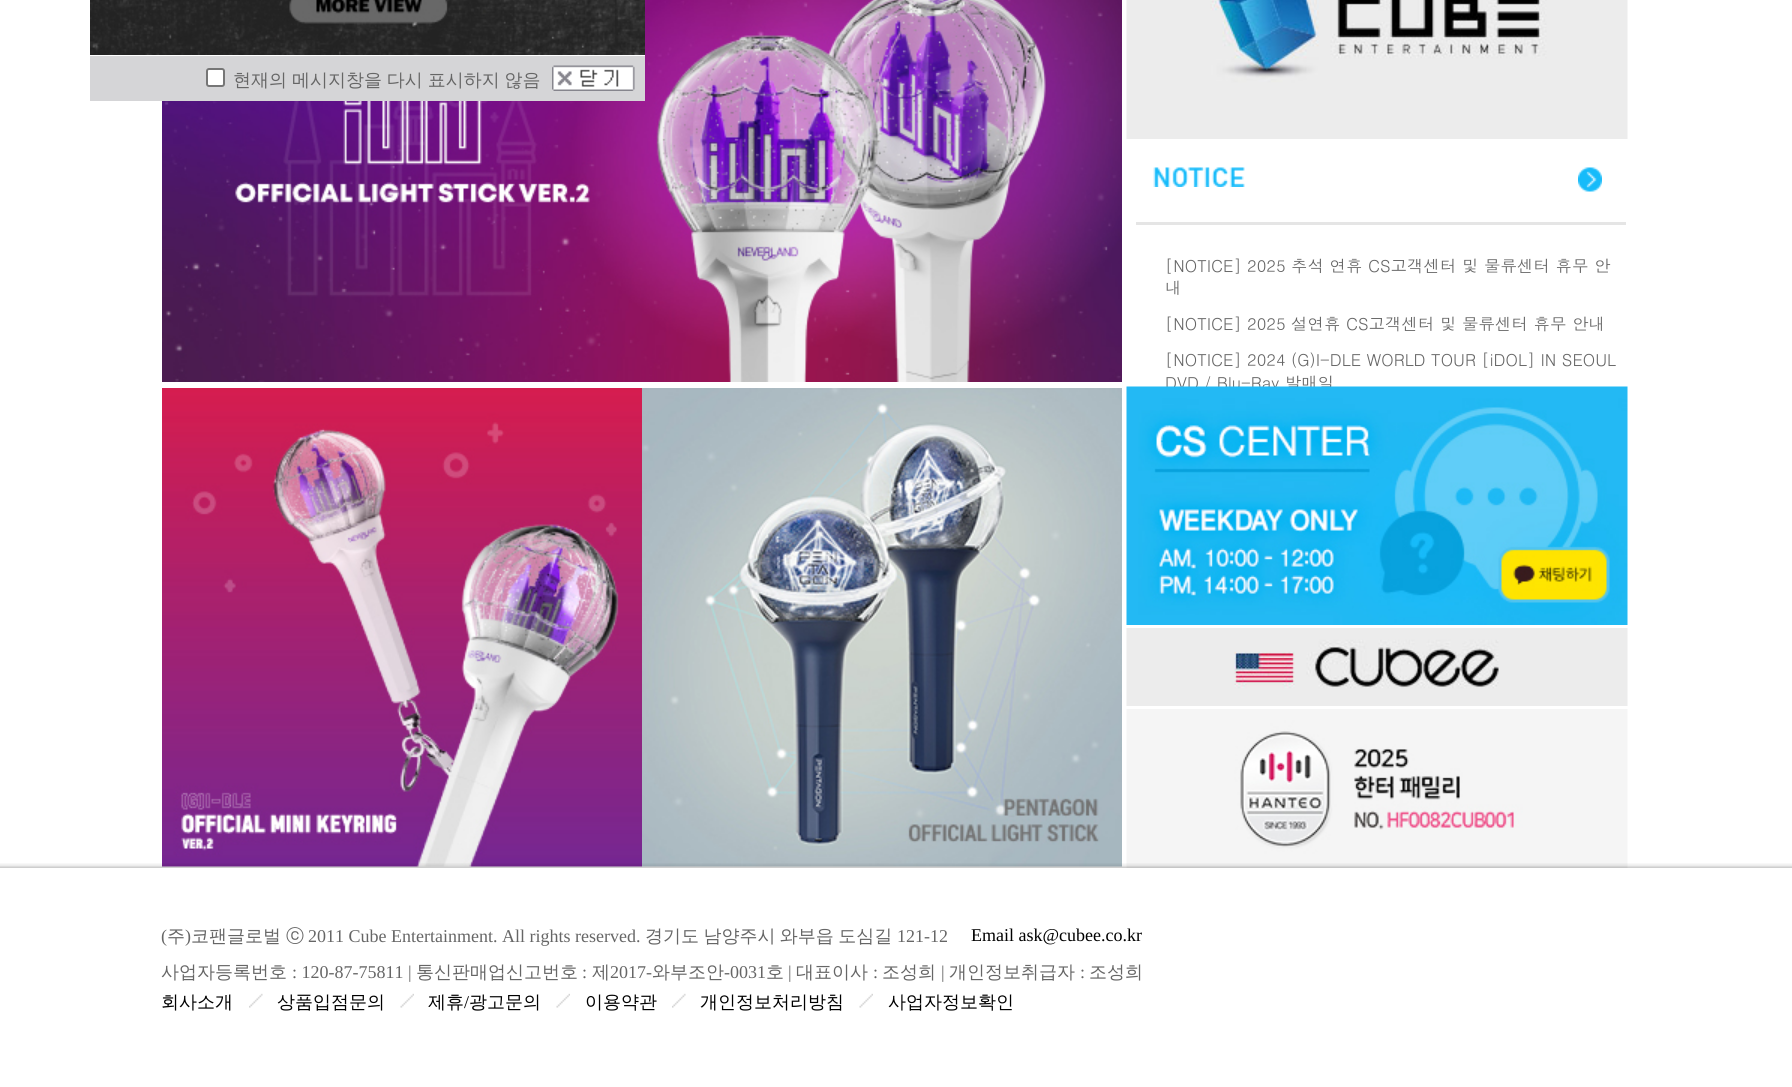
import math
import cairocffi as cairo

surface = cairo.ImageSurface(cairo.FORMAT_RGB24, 1792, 1087)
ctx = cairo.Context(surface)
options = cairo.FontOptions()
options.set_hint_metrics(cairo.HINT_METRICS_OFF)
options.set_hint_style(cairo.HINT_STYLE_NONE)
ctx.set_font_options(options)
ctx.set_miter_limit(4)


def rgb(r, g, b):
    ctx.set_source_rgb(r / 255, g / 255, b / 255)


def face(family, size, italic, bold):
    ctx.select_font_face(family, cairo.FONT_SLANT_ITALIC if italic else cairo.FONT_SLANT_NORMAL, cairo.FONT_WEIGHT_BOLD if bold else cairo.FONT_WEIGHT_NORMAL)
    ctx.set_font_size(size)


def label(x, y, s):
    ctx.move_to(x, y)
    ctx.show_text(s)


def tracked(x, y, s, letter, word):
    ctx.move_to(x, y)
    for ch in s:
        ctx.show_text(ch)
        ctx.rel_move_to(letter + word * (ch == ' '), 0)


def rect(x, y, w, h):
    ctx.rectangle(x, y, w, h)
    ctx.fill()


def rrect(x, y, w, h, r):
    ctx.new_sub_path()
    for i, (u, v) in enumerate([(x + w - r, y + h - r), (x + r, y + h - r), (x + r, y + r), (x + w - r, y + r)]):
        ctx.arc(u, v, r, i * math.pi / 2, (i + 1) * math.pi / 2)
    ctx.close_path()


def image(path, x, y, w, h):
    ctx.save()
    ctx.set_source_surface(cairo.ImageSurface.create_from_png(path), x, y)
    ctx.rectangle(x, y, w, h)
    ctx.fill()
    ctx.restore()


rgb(255, 255, 255)
ctx.paint()
image('image2.png', 162, 0, 960, 382)
rgb(255, 255, 255)
rect(162, 55, 483, 1)
image('image0.png', 90, 0, 555, 55)
rgb(213, 213, 215)
rect(90, 56, 555, 45)
rgb(255, 255, 255)
rrect(207, 69, 17, 17, 2)
ctx.fill_preserve()
rgb(118, 118, 118)
ctx.stroke()
face('WenQuanYi Zen Hei Medium', 18, 0, 0)
rgb(102, 102, 102)
tracked(233, 86, '현재의 메시지창을 다시 표시하지 않음', 0, -0.5)
image('image1.png', 552, 65, 83, 26)
image('image3.png', 1126, 0, 502, 139)
image('image4.png', 1153, 167, 92, 20)
image('image5.png', 1578, 167, 24, 25)
rgb(229, 229, 229)
rect(1136, 222, 490, 3)
face('Dotum', 16.5, 0, 0)
rgb(102, 102, 102)
label(1165, 272, '[NOTICE] 2025 추석 연휴 CS고객센터 및 물류센터 휴무 안')
label(1165, 294, '내')
label(1165, 330, '[NOTICE] 2025 설연휴 CS고객센터 및 물류센터 휴무 안내')
label(1165, 366, '[NOTICE] 2024 (G)I-DLE WORLD TOUR [iDOL] IN SEOUL')
label(1165, 389, 'DVD / Blu-Ray 발매일')
image('image6.png', 162, 388, 480, 479)
image('image7.png', 642, 388, 480, 479)
image('image8.png', 1126, 386, 502, 239)
image('image9.png', 1126, 628, 502, 78)
image('image10.png', 1126, 709, 502, 159)
image('image11.png', 0, 863, 1792, 5)
face('Liberation Serif', 18, 0, 0)
label(161, 942, '(')
face('WenQuanYi Zen Hei Medium', 18, 0, 0)
label(167, 942, '주')
face('Liberation Serif', 18, 0, 0)
label(185, 942, ')')
face('WenQuanYi Zen Hei Medium', 18, 0, 0)
label(191, 942, '코팬글로벌')
label(286, 942, 'ⓒ')
face('Liberation Serif', 18, 0, 0)
label(308, 942, '2011 Cube Entertainment. All rights reserved.')
face('WenQuanYi Zen Hei Medium', 18, 0, 0)
tracked(645, 942, '경기도 남양주시 와부읍 도심길', 0, -1)
face('Liberation Serif', 18, 0, 0)
label(897, 942, '121-12')
rgb(0, 0, 0)
label(971, 941, 'Email ask@cubee.co.kr')
face('WenQuanYi Zen Hei Medium', 18, 0, 0)
rgb(102, 102, 102)
label(161, 978, '사업자등록번호')
face('Liberation Serif', 18, 0, 0)
label(292, 978, ': 120-87-75811 |')
face('WenQuanYi Zen Hei Medium', 18, 0, 0)
label(416, 978, '통신판매업신고번호')
face('Liberation Serif', 18, 0, 0)
label(582, 978, ':')
face('WenQuanYi Zen Hei Medium', 18, 0, 0)
label(592, 978, '제')
face('Liberation Serif', 18, 0, 0)
label(610, 978, '2017-')
face('WenQuanYi Zen Hei Medium', 18, 0, 0)
label(652, 978, '와부조안')
face('Liberation Serif', 18, 0, 0)
label(724, 978, '-0031')
face('WenQuanYi Zen Hei Medium', 18, 0, 0)
label(766, 978, '호')
face('Liberation Serif', 18, 0, 0)
label(788, 978, '|')
face('WenQuanYi Zen Hei Medium', 18, 0, 0)
label(796, 978, '대표이사')
face('Liberation Serif', 18, 0, 0)
label(873, 978, ':')
face('WenQuanYi Zen Hei Medium', 18, 0, 0)
label(882, 978, '조성희')
face('Liberation Serif', 18, 0, 0)
label(941, 978, '|')
face('WenQuanYi Zen Hei Medium', 18, 0, 0)
label(949, 978, '개인정보취급자')
face('Liberation Serif', 18, 0, 0)
label(1080, 978, ':')
face('WenQuanYi Zen Hei Medium', 18, 0, 0)
label(1089, 978, '조성희')
rgb(0, 0, 0)
label(161, 1008, '회사소개')
image('image12.png', 249, 993, 14, 15)
label(277, 1008, '상품입점문의')
image('image13.png', 400, 993, 14, 15)
label(428, 1008, '제휴')
face('Liberation Serif', 18, 0, 0)
label(464, 1008, '/')
face('WenQuanYi Zen Hei Medium', 18, 0, 0)
label(469, 1008, '광고문의')
image('image13.png', 556, 993, 14, 15)
label(585, 1008, '이용약관')
image('image12.png', 672, 993, 14, 15)
label(700, 1008, '개인정보처리방침')
image('image14.png', 859, 993, 14, 15)
label(888, 1008, '사업자정보확인')
surface.write_to_png('render.png')
